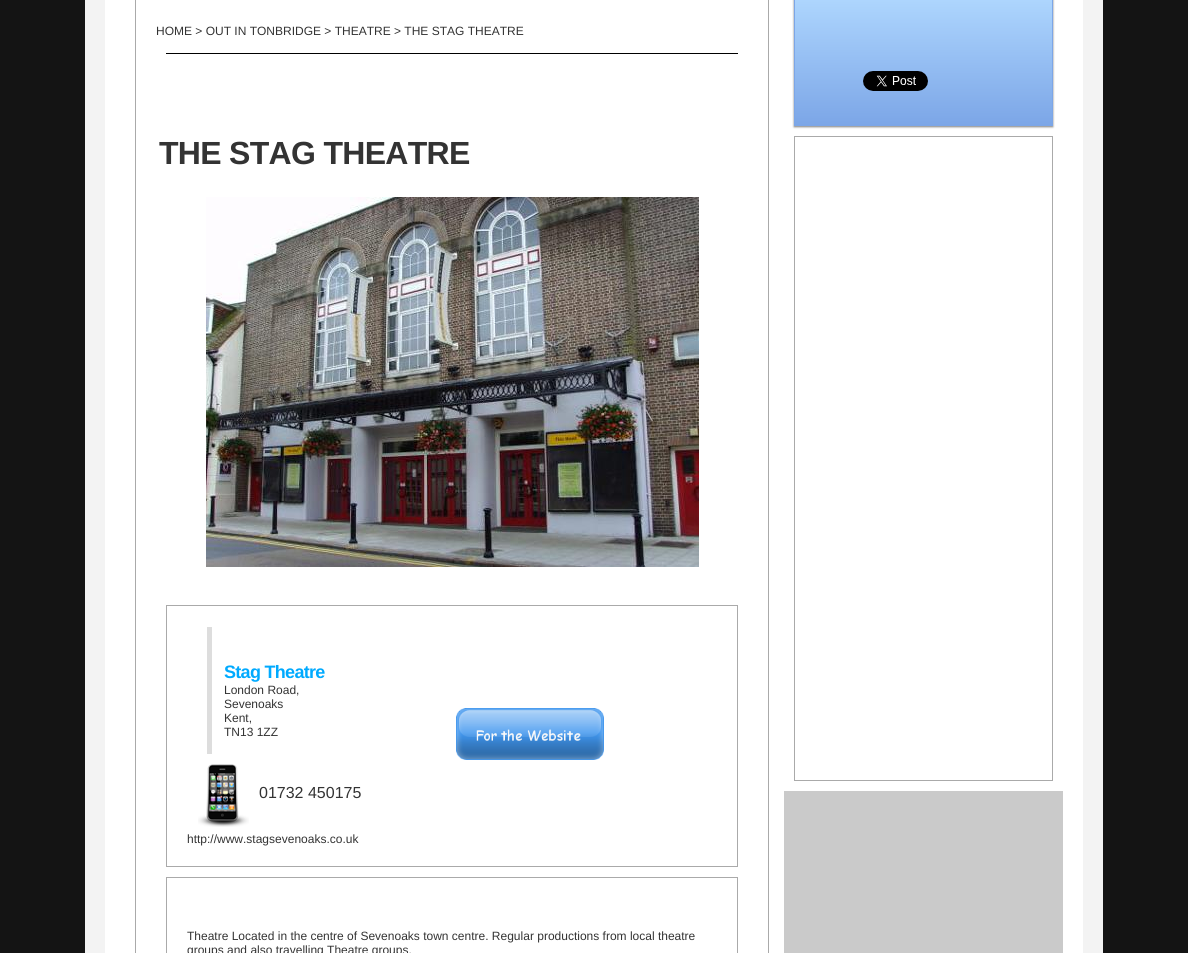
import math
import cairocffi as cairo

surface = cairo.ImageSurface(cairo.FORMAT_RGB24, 1188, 953)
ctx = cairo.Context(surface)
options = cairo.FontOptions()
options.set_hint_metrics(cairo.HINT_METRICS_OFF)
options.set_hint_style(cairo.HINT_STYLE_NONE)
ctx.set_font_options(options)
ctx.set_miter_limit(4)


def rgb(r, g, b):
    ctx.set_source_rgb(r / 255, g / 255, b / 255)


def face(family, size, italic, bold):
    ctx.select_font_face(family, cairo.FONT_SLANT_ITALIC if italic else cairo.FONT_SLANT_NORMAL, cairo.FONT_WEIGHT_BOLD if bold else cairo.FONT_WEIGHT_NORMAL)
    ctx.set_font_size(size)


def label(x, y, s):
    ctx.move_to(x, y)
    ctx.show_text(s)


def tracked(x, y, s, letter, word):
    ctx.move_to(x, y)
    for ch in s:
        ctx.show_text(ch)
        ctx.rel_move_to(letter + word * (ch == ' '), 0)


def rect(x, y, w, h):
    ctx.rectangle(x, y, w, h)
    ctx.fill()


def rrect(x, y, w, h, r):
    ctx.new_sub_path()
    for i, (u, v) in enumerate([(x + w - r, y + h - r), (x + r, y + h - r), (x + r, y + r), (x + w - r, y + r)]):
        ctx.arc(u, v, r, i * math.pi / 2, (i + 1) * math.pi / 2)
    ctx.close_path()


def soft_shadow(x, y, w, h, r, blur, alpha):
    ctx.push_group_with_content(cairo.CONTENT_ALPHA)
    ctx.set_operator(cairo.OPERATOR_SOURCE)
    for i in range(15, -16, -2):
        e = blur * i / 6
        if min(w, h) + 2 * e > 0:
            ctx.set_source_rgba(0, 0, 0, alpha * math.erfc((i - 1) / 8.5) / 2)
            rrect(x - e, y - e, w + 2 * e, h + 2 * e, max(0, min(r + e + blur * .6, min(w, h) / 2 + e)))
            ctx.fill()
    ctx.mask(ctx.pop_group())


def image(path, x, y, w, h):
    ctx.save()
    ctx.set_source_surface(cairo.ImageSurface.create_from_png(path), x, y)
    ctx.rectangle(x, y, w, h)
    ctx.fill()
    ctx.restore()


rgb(20, 20, 20)
ctx.paint()
rgb(255, 255, 255)
rect(105, 0, 978, 953)
rgb(243, 243, 243)
rect(1083, 0, 20, 953)
rect(85, 0, 20, 953)
ctx.rectangle(135.5, -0.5, 633, 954)
rgb(170, 170, 170)
ctx.set_line_width(1)
ctx.stroke()
face('Liberation Sans', 12, 0, 0)
rgb(51, 51, 51)
label(156, 35, 'HOME > OUT IN TONBRIDGE > THEATRE > THE STAG THEATRE')
rgb(0, 0, 0)
rect(166, 53, 572, 1)
face('Liberation Sans', 32, 0, 1)
rgb(51, 51, 51)
tracked(159, 164, 'THE STAG THEATRE', -0.7, 0)
image('image0.png', 206, 197, 493, 370)
ctx.rectangle(166.5, 605.5, 571, 261)
rgb(170, 170, 170)
ctx.stroke()
rgb(221, 221, 221)
rect(207, 627, 5, 127)
face('Liberation Sans', 18, 0, 1)
rgb(0, 170, 255)
tracked(224, 678, 'Stag Theatre', -0.7, 0)
face('Liberation Sans', 12, 0, 0)
rgb(51, 51, 51)
label(224, 694, 'London Road,')
label(224, 708, 'Sevenoaks')
label(224, 722, 'Kent,')
label(224, 736, 'TN13 1ZZ')
image('image1.png', 198, 764, 51, 63)
face('Liberation Sans', 16, 0, 0)
label(259, 798, '01732 450175')
face('Liberation Sans', 12, 0, 0)
label(187, 843, 'http://www.stagsevenoaks.co.uk')
image('image2.png', 456, 708, 148, 52)
ctx.rectangle(166.5, 877.5, 571, 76)
rgb(170, 170, 170)
ctx.stroke()
rgb(51, 51, 51)
label(187, 940, 'Theatre Located in the centre of Sevenoaks town centre. Regular productions from local theatre')
label(187, 954, 'groups and also travelling Theatre groups.')
rgb(0, 0, 0)
soft_shadow(794, -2, 259, 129, 0, 1, 0.5)
ctx.rectangle(794.5, -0.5, 258, 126)
rgb(124, 166, 231)
ctx.stroke()
gradient = cairo.LinearGradient(924, -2, 924, 125)
gradient.add_color_stop_rgba(0, 0.682, 0.839, 0.996, 1)
gradient.add_color_stop_rgba(1, 0.486, 0.651, 0.906, 1)
ctx.set_source(gradient)
rect(795, 0, 257, 125)
image('image3.png', 863, 71, 65, 20)
ctx.rectangle(794.5, 136.5, 258, 644)
rgb(170, 170, 170)
ctx.stroke()
rgb(202, 202, 202)
rect(784, 791, 279, 162)
surface.write_to_png('render.png')
